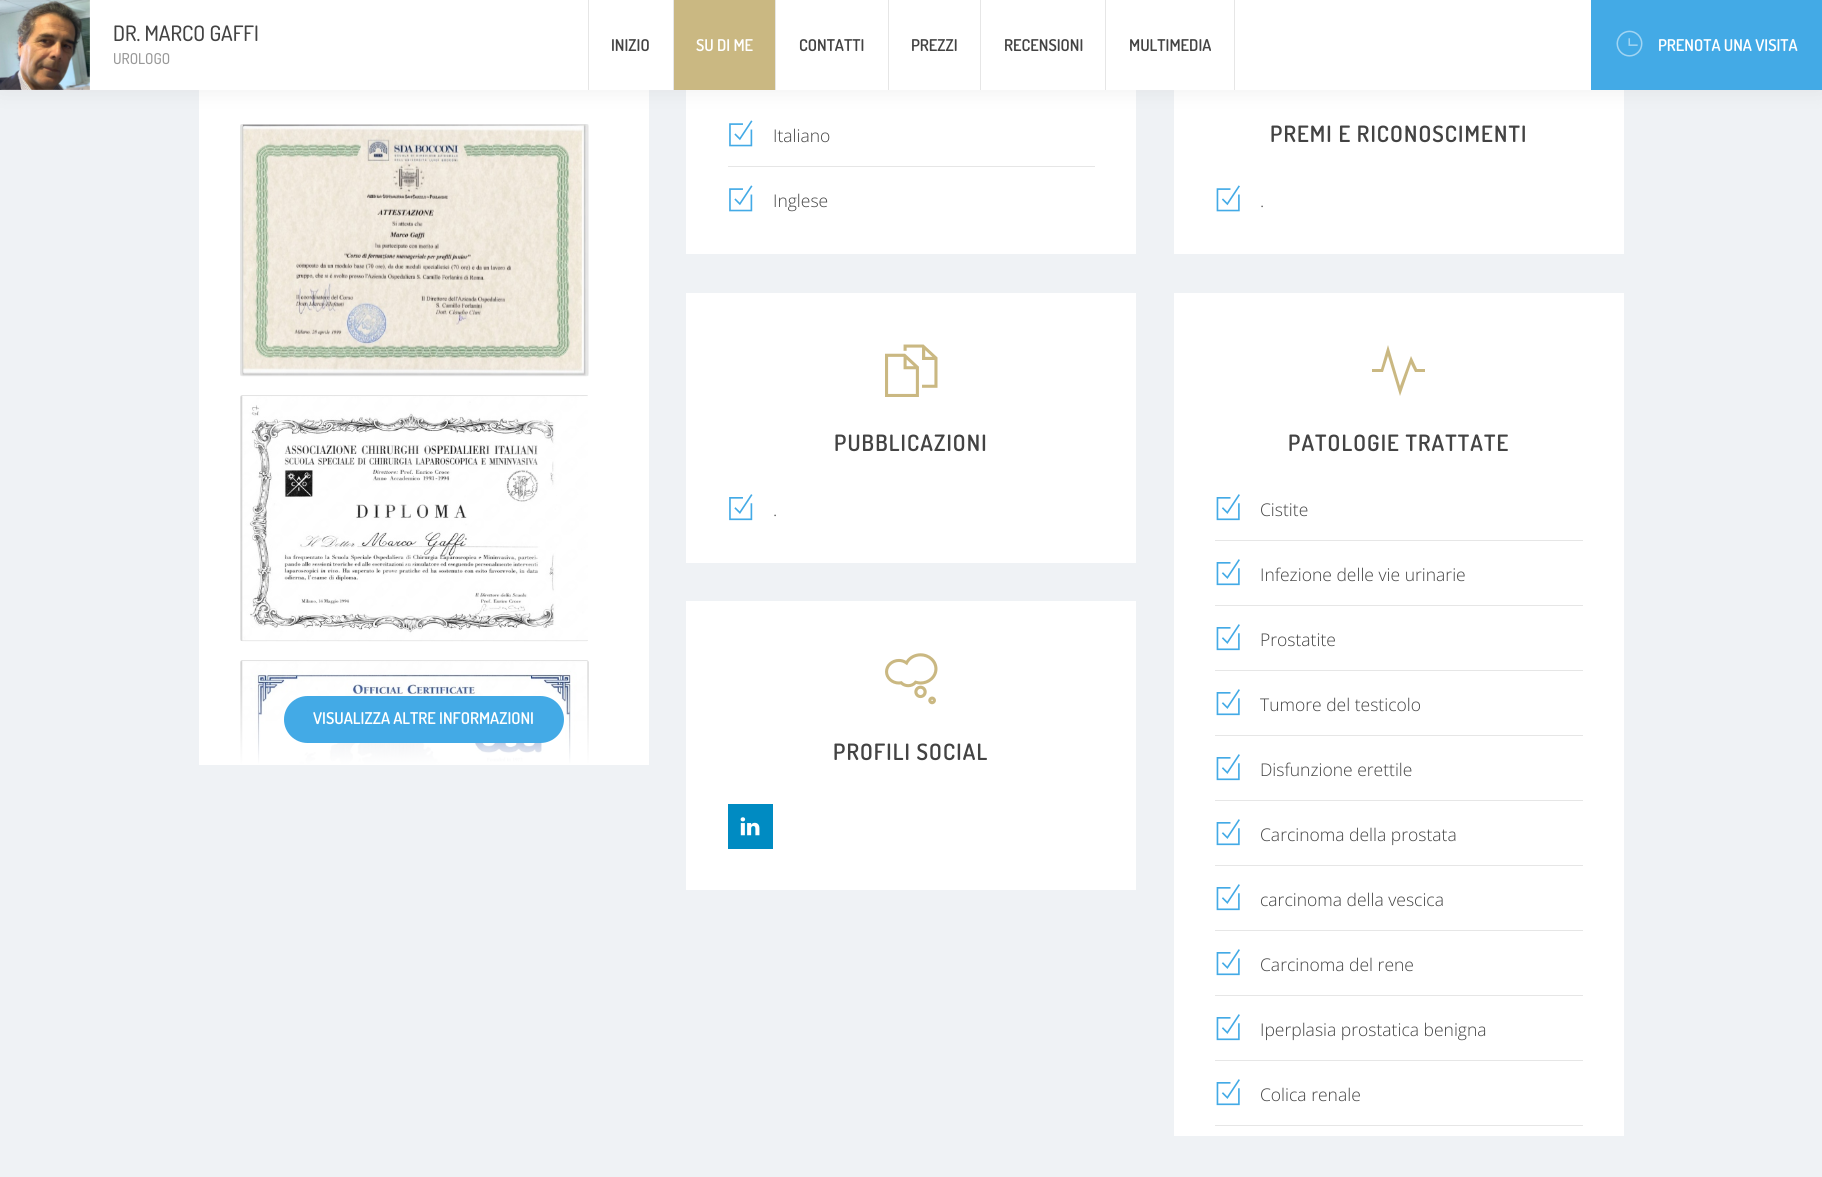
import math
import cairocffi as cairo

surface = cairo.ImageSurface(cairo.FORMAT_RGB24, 1822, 1177)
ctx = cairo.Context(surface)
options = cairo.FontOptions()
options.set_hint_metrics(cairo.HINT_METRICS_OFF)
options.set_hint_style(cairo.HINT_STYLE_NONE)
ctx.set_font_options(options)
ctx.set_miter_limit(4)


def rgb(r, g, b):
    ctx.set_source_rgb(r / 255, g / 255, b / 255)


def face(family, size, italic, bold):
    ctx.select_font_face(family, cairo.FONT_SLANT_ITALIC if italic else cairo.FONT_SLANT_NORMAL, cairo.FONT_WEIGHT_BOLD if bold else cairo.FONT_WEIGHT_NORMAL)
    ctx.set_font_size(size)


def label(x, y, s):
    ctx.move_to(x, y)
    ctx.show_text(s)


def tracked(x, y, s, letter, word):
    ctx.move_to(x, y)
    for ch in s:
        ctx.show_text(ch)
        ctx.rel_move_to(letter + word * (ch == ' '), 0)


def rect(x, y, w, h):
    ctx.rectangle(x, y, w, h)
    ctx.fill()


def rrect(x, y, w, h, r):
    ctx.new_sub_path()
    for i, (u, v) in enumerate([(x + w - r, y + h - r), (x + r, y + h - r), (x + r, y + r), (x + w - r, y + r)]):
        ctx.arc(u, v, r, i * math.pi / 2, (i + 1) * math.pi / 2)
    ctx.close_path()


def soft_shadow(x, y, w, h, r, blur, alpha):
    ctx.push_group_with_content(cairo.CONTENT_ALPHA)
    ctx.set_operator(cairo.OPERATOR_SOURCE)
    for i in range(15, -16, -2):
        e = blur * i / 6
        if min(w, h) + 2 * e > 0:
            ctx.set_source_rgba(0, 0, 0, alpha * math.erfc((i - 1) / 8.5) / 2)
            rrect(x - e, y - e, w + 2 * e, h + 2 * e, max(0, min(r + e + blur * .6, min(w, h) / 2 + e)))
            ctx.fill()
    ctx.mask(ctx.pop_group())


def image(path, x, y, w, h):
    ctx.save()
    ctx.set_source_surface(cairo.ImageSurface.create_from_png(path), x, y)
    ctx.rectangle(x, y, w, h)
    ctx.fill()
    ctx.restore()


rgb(239, 242, 245)
ctx.paint()
rgb(255, 255, 255)
rect(686, 90, 450, 164)
image('image2.png', 729, 120, 24, 27)
rect(1174, 90, 450, 164)
rect(199, 90, 450, 674)
image('image4.png', 240, 124, 349, 253)
rgb(0, 0, 0)
soft_shadow(0, 0, 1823, 90, 0, 12.5, 0.07)
rgb(255, 255, 255)
rect(0, 0, 1591, 90)
image('image0.png', 0, 0, 90, 90)
face('Dosis Medium', 21.25, 0, 0)
rgb(67, 67, 67)
label(113, 41, 'DR. MARCO GAFFI')
face('Dosis Medium', 15, 0, 0)
rgb(153, 153, 153)
label(113, 64, 'UROLOGO')
rgb(230, 230, 230)
rect(673, 0, 1, 90)
rect(588, 0, 1, 90)
face('Dosis SemiBold', 16.25, 0, 0)
rgb(67, 67, 67)
label(611, 51, 'INIZIO')
rgb(230, 230, 230)
rect(775, 0, 1, 90)
rgb(202, 184, 130)
rect(674, 0, 101, 90)
rgb(255, 255, 255)
label(696, 51, 'SU DI ME')
rgb(230, 230, 230)
rect(888, 0, 1, 90)
rgb(67, 67, 67)
label(799, 51, 'CONTATTI')
rgb(230, 230, 230)
rect(980, 0, 1, 90)
rgb(67, 67, 67)
label(911, 51, 'PREZZI')
rgb(230, 230, 230)
rect(1105, 0, 1, 90)
rgb(67, 67, 67)
label(1004, 51, 'RECENSIONI')
rgb(230, 230, 230)
rect(1234, 0, 1, 90)
rgb(67, 67, 67)
label(1129, 51, 'MULTIMEDIA')
rgb(67, 170, 230)
rect(1591, 0, 231, 90)
image('image1.png', 1616, 30, 27, 27)
rgb(255, 255, 255)
label(1658, 51, 'PRENOTA UNA VISITA')
rgb(230, 230, 230)
rect(728, 166, 367, 1)
face('Open Sans Light', 17.5, 0, 0)
rgb(67, 67, 67)
label(773, 142, 'Italiano')
image('image2.png', 729, 185, 24, 27)
label(773, 207, 'Inglese')
face('Dosis SemiBold', 22.5, 0, 0)
tracked(1270, 142, 'PREMI E RICONOSCIMENTI', 1.1, 0)
image('image3.png', 1216, 185, 24, 27)
face('Open Sans Light', 17.5, 0, 0)
label(1260, 207, '.')
image('image5.png', 240, 395, 348, 247)
image('image6.png', 240, 660, 349, 104)
gradient = cairo.LinearGradient(424, 678, 424, 765)
gradient.add_color_stop_rgba(0, 1, 1, 1, 0)
gradient.add_color_stop_rgba(1, 1, 1, 1, 1)
ctx.set_source(gradient)
rect(199, 680, 450, 85)
rgb(67, 170, 230)
rrect(284, 696, 280, 47, 23.5)
ctx.fill()
face('Dosis SemiBold', 16.25, 0, 0)
rgb(255, 255, 255)
label(313, 724, 'VISUALIZZA ALTRE INFORMAZIONI')
rect(686, 293, 450, 270)
image('image7.png', 885, 344, 53, 53)
face('Dosis SemiBold', 22.5, 0, 0)
rgb(67, 67, 67)
tracked(834, 451, 'PUBBLICAZIONI', 1.1, 0)
image('image8.png', 729, 494, 24, 27)
face('Open Sans Light', 17.5, 0, 0)
label(773, 516, '.')
rgb(255, 255, 255)
rect(1174, 293, 450, 843)
rgb(202, 184, 130)
ctx.new_path()
ctx.move_to(1417, 369)
ctx.line_to(1411, 356)
ctx.line_to(1400, 386)
ctx.line_to(1388, 345)
ctx.line_to(1381, 369)
ctx.line_to(1372, 369)
ctx.line_to(1372, 372)
ctx.line_to(1383, 372)
ctx.line_to(1388, 356)
ctx.line_to(1400, 396)
ctx.line_to(1411, 364)
ctx.line_to(1415, 372)
ctx.line_to(1425, 372)
ctx.line_to(1425, 369)
ctx.close_path()
ctx.fill()
face('Dosis SemiBold', 22.5, 0, 0)
rgb(67, 67, 67)
tracked(1288, 451, 'PATOLOGIE TRATTATE', 1.1, 0)
rgb(230, 230, 230)
rect(1215, 540, 368, 1)
image('image9.png', 1216, 494, 24, 27)
face('Open Sans Light', 17.5, 0, 0)
rgb(67, 67, 67)
label(1260, 516, 'Cistite')
rgb(230, 230, 230)
rect(1215, 605, 368, 1)
image('image9.png', 1216, 559, 24, 27)
rgb(67, 67, 67)
label(1260, 581, 'Infezione delle vie urinarie')
rgb(230, 230, 230)
rect(1215, 670, 368, 1)
image('image9.png', 1216, 624, 24, 27)
rgb(67, 67, 67)
label(1260, 646, 'Prostatite')
rgb(230, 230, 230)
rect(1215, 735, 368, 1)
image('image9.png', 1216, 689, 24, 27)
rgb(67, 67, 67)
label(1260, 711, 'Tumore del testicolo')
rgb(230, 230, 230)
rect(1215, 800, 368, 1)
image('image9.png', 1216, 754, 24, 27)
rgb(67, 67, 67)
label(1260, 776, 'Disfunzione erettile')
rgb(230, 230, 230)
rect(1215, 865, 368, 1)
image('image9.png', 1216, 819, 24, 27)
rgb(67, 67, 67)
label(1260, 841, 'Carcinoma della prostata')
rgb(230, 230, 230)
rect(1215, 930, 368, 1)
image('image9.png', 1216, 884, 24, 27)
rgb(67, 67, 67)
label(1260, 906, 'carcinoma della vescica')
rgb(230, 230, 230)
rect(1215, 995, 368, 1)
image('image9.png', 1216, 949, 24, 27)
rgb(67, 67, 67)
label(1260, 971, 'Carcinoma del rene')
rgb(230, 230, 230)
rect(1215, 1060, 368, 1)
image('image9.png', 1216, 1014, 24, 27)
rgb(67, 67, 67)
label(1260, 1036, 'Iperplasia prostatica benigna')
rgb(230, 230, 230)
rect(1215, 1125, 368, 1)
image('image9.png', 1216, 1079, 24, 27)
rgb(67, 67, 67)
label(1260, 1101, 'Colica renale')
rgb(255, 255, 255)
rect(686, 601, 450, 289)
image('image10.png', 885, 653, 53, 52)
face('Dosis SemiBold', 22.5, 0, 0)
rgb(67, 67, 67)
tracked(833, 760, 'PROFILI SOCIAL', 1.1, 0)
rgb(0, 139, 194)
rect(728, 804, 45, 45)
image('image11.png', 740, 817, 20, 19)
surface.write_to_png('render.png')
